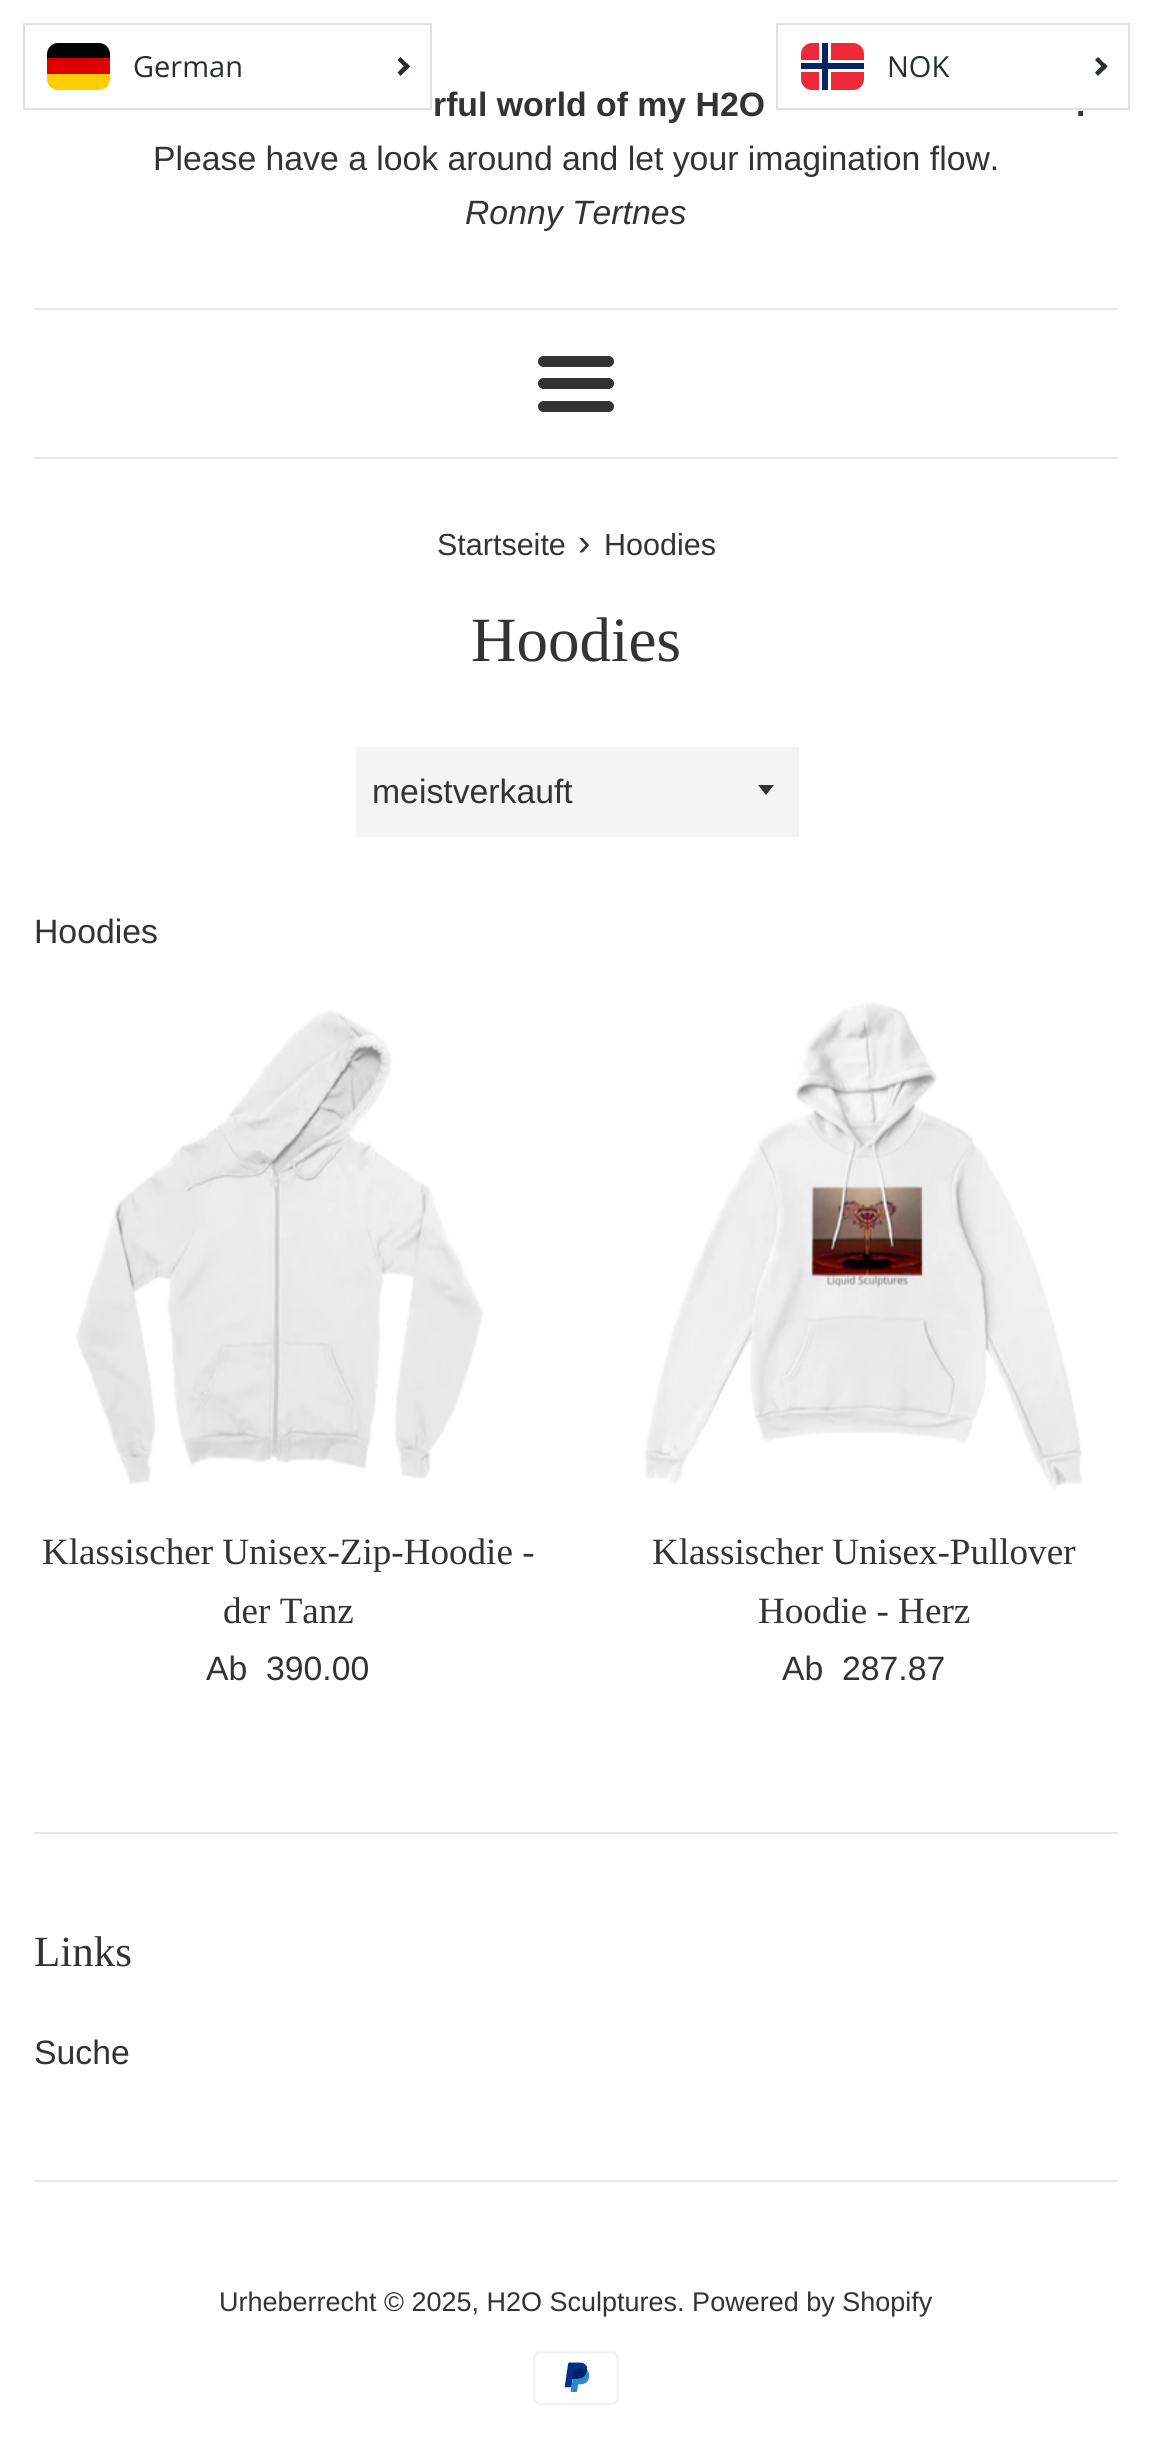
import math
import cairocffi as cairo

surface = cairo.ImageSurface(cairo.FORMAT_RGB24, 1150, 2464)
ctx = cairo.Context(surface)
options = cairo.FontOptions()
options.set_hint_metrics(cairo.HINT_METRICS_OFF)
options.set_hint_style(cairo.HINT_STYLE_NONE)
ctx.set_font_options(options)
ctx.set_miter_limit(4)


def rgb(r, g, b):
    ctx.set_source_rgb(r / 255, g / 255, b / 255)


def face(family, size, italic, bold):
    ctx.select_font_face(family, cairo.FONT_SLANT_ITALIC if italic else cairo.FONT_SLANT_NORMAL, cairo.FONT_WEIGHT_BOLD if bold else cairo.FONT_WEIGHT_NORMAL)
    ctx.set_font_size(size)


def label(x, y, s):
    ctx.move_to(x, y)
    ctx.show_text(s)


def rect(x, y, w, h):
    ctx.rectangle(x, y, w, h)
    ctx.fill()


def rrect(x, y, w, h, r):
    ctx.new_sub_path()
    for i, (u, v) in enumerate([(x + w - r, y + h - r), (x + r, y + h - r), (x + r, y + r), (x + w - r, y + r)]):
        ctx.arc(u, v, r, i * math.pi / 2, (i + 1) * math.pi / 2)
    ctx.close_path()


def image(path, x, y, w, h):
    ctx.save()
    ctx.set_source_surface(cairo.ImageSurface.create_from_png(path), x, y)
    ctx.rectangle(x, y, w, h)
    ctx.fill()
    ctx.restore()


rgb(255, 255, 255)
ctx.paint()
ctx.rectangle(24, 24, 407, 85)
rgb(224, 224, 224)
ctx.stroke()
rgb(255, 206, 0)
ctx.new_path()
ctx.move_to(47, 74)
ctx.line_to(110, 74)
ctx.line_to(110, 79)
ctx.curve_to(110, 85, 105, 90, 99, 90)
ctx.line_to(58, 90)
ctx.curve_to(52, 90, 47, 85, 47, 79)
ctx.close_path()
ctx.fill()
rgb(0, 0, 0)
ctx.new_path()
ctx.move_to(58, 43)
ctx.line_to(99, 43)
ctx.curve_to(105, 43, 110, 48, 110, 54)
ctx.line_to(110, 58)
ctx.line_to(47, 58)
ctx.line_to(47, 54)
ctx.curve_to(47, 48, 52, 43, 58, 43)
ctx.close_path()
ctx.fill()
rgb(221, 0, 0)
rect(47, 58, 63, 16)
face('Open Sans', 29, 0, 0)
rgb(39, 46, 49)
label(133, 77, 'German')
ctx.new_path()
ctx.move_to(400.5, 57)
ctx.line_to(410, 66.5)
ctx.line_to(407, 69.5)
ctx.line_to(397.5, 60)
ctx.close_path()
ctx.fill()
ctx.new_path()
ctx.move_to(407, 63)
ctx.line_to(410, 66.5)
ctx.line_to(400.5, 76)
ctx.line_to(397.5, 72.5)
ctx.close_path()
ctx.fill()
ctx.rectangle(777, 24, 352, 85)
rgb(224, 224, 224)
ctx.stroke()
rgb(237, 41, 57)
rrect(801, 43, 63, 47, 11)
ctx.fill()
rgb(255, 255, 255)
rect(819, 43, 12, 47)
rect(801, 60, 63, 12)
rgb(0, 38, 100)
rect(822, 43, 6, 47)
rect(801, 63, 63, 6)
rgb(39, 46, 49)
label(887, 77, 'NOK')
ctx.new_path()
ctx.move_to(1098, 57)
ctx.line_to(1107.5, 66.5)
ctx.line_to(1104.5, 69.5)
ctx.line_to(1095, 60)
ctx.close_path()
ctx.fill()
ctx.new_path()
ctx.move_to(1104.5, 63)
ctx.line_to(1107.5, 66.5)
ctx.line_to(1098, 76)
ctx.line_to(1095, 72.5)
ctx.close_path()
ctx.fill()
face('Liberation Sans', 33.75, 0, 1)
rgb(51, 51, 51)
label(433, 116, 'rful world of my H2O')
label(1076, 116, '.')
face('Liberation Sans', 33.75, 0, 0)
label(153, 170, 'Please have a look around and let your imagination flow.')
face('Liberation Sans', 33.75, 1, 0)
label(465, 224, 'Ronny Tertnes')
rgb(232, 232, 232)
rect(34, 308, 1084, 2)
rgb(51, 51, 51)
rrect(538, 356, 76, 11, 5.5)
ctx.fill()
rrect(538, 378, 76, 11, 5.5)
ctx.fill()
rrect(538, 401, 76, 11, 5.5)
ctx.fill()
rgb(232, 232, 232)
rect(34, 457, 1084, 2)
face('Liberation Sans', 30.5, 0, 0)
rgb(51, 51, 51)
label(437, 555, 'Startseite')
face('Liberation Sans', 37.1, 0, 0)
label(578, 555, '›')
face('Liberation Sans', 30.5, 0, 0)
label(604, 555, 'Hoodies')
face('Liberation Serif', 63, 0, 0)
label(471, 661, 'Hoodies')
rgb(244, 244, 244)
rect(356, 747, 443, 90)
rgb(51, 51, 51)
ctx.new_path()
ctx.move_to(758, 785)
ctx.line_to(766, 795)
ctx.line_to(774, 785)
ctx.close_path()
ctx.fill()
face('Liberation Sans', 33.75, 0, 0)
label(372, 803, 'meistverkauft')
label(34, 943, 'Hoodies')
image('image0.png', 76, 1010, 408, 474)
face('Liberation Serif', 37.1, 0, 0)
label(42, 1564, 'Klassischer Unisex-Zip-Hoodie -')
label(223, 1623, 'der Tanz')
face('Liberation Sans', 33.75, 0, 0)
label(206, 1680, 'Ab')
label(266, 1680, '390.00')
image('image1.png', 645, 1001, 437, 489)
face('Liberation Serif', 37.1, 0, 0)
label(652, 1564, 'Klassischer Unisex-Pullover')
label(758, 1623, 'Hoodie - Herz')
face('Liberation Sans', 33.75, 0, 0)
label(782, 1680, 'Ab')
label(842, 1680, '287.87')
rgb(232, 232, 232)
rect(34, 1832, 1084, 2)
face('Liberation Serif', 43, 0, 0)
rgb(51, 51, 51)
label(34, 1966, 'Links')
face('Liberation Sans', 33.75, 0, 0)
label(34, 2064, 'Suche')
rgb(232, 232, 232)
rect(34, 2180, 1084, 2)
face('Liberation Sans', 27, 0, 0)
rgb(51, 51, 51)
label(219, 2311, 'Urheberrecht © 2025, H2O Sculptures. Powered by Shopify')
image('image2.png', 533, 2351, 86, 54)
surface.write_to_png('render.png')
